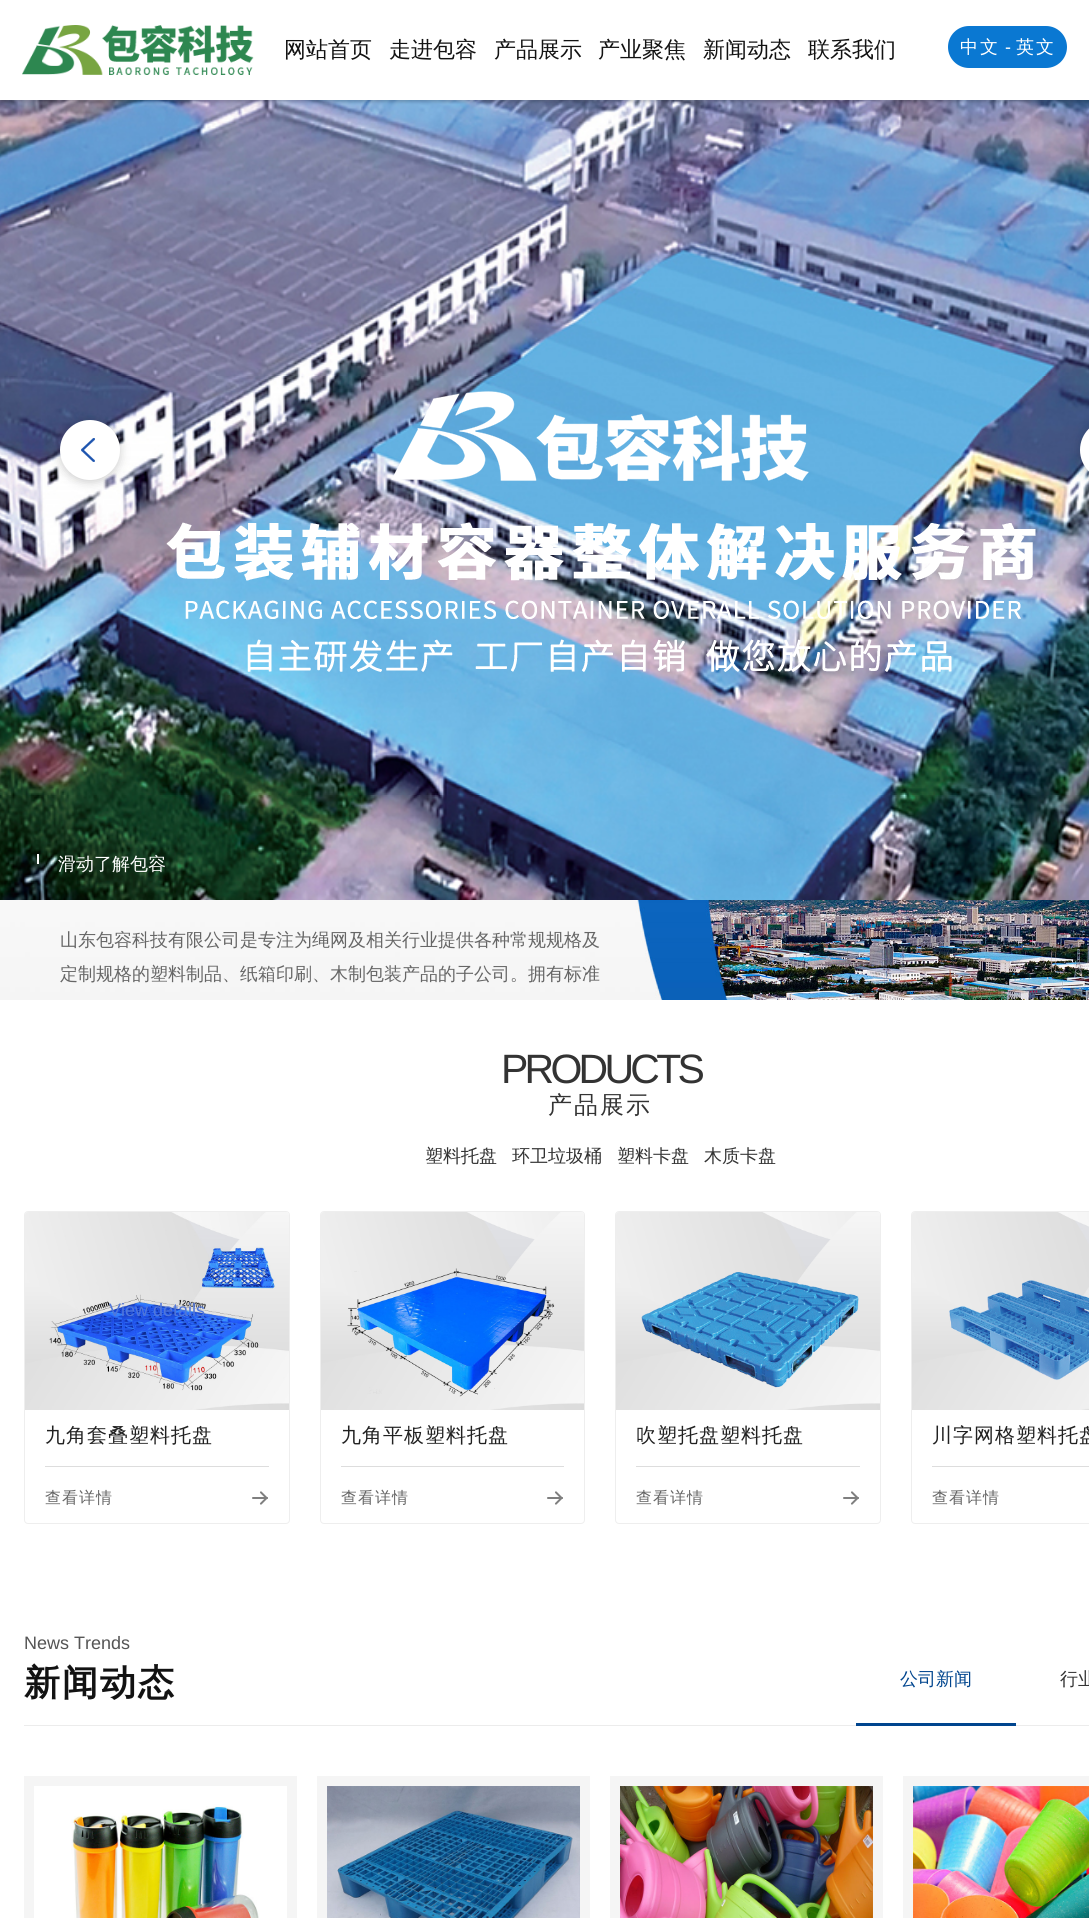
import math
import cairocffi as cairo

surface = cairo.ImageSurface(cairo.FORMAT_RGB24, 1089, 1918)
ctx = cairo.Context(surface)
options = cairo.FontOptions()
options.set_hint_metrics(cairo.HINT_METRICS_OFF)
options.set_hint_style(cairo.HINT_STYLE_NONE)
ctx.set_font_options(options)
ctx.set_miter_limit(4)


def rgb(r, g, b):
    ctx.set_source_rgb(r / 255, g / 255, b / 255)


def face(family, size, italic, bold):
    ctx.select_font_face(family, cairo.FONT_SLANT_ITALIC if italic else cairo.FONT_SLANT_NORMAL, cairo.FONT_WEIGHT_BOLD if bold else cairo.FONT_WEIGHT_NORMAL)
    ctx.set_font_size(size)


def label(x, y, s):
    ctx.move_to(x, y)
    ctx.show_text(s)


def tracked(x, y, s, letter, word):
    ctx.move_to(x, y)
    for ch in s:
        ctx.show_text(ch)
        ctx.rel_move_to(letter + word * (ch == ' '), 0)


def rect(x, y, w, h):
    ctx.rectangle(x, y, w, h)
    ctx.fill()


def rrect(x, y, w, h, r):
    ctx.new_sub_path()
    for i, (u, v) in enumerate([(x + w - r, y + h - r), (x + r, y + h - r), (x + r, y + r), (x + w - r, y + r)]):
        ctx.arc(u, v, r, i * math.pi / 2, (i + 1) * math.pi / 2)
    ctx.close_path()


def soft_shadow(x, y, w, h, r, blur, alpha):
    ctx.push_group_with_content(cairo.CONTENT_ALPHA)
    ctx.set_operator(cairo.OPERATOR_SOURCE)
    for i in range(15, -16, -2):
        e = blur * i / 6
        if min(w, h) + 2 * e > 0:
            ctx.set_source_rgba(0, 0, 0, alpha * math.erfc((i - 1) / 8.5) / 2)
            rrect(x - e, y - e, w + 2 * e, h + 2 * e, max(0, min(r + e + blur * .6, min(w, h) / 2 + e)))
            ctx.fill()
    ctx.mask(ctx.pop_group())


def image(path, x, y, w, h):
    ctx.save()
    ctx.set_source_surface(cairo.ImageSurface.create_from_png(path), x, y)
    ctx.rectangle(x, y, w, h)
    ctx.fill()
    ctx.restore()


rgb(255, 255, 255)
ctx.paint()
image('image1.png', 0, 100, 1089, 800)
rgb(0, 0, 0)
soft_shadow(0, 2, 1089, 100, 0, 1.5, 0.2)
rgb(255, 255, 255)
rect(0, 0, 1089, 100)
image('image0.png', 22, 25, 232, 50)
face('WenQuanYi Zen Hei Medium', 22, 0, 0)
rgb(18, 18, 18)
label(284, 57, '网站首页')
label(389, 57, '走进包容')
label(494, 57, '产品展示')
label(598, 57, '产业聚焦')
label(703, 57, '新闻动态')
label(808, 57, '联系我们')
rgb(10, 120, 210)
rrect(948, 26, 119, 42, 21)
ctx.fill()
face('WenQuanYi Zen Hei Medium', 18, 0, 0)
rgb(255, 255, 255)
tracked(960, 53, '中文', 2, 0)
face('Liberation Sans', 18, 0, 0)
label(1005, 53, '-')
face('WenQuanYi Zen Hei Medium', 18, 0, 0)
tracked(1016, 53, '英文', 2, 0)
image('image2.png', 166, 391, 870, 281)
rgb(0, 0, 0)
soft_shadow(60, 422, 60, 60, 30, 5, 0.2)
rgb(255, 255, 255)
ctx.arc(90, 450, 30, 0, 2 * math.pi)
ctx.fill()
image('image3.png', 81, 438, 14, 24)
rgb(0, 0, 0)
soft_shadow(1080, 422, 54, 60, 30, 5, 0.2)
rgb(255, 255, 255)
rrect(1080, 420, 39, 60, 30)
ctx.fill()
rect(37, 854, 2, 10)
label(58, 870, '滑动了解包容')
image('image4.png', 0, 900, 1089, 100)
rgb(102, 102, 102)
label(60, 946, '山东包容科技有限公司是专注为绳网及相关行业提供各种常规规格及')
label(60, 980, '定制规格的塑料制品、纸箱印刷、木制包装产品的子公司。拥有标准')
face('Liberation Sans', 41, 0, 0)
rgb(51, 51, 51)
tracked(501, 1083, 'PRODUCTS', -3.75, 0)
face('WenQuanYi Zen Hei Medium', 24, 0, 0)
tracked(548, 1113, '产品展示', 2, 0)
face('WenQuanYi Zen Hei Medium', 18, 0, 0)
label(425, 1162, '塑料托盘')
label(512, 1162, '环卫垃圾桶')
label(617, 1162, '塑料卡盘')
label(704, 1162, '木质卡盘')
rrect(24.5, 1211.5, 265, 312, 3.5)
rgb(238, 238, 238)
ctx.set_line_width(1)
ctx.stroke()
image('image5.png', 25, 1212, 264, 198)
face('Liberation Sans', 18, 0, 0)
rgb(80, 118, 217)
label(109, 1316, 'View details')
rgb(221, 221, 221)
rect(45, 1466, 224, 1)
face('WenQuanYi Zen Hei Medium', 20, 0, 0)
rgb(33, 33, 33)
tracked(45, 1442, '九角套叠塑料托盘', 1, 0)
image('image6.png', 252, 1491, 16, 14)
face('WenQuanYi Zen Hei Medium', 16, 0, 0)
rgb(102, 102, 102)
tracked(45, 1503, '查看详情', 1, 0)
rrect(320.5, 1211.5, 264, 312, 3.5)
rgb(238, 238, 238)
ctx.stroke()
image('image7.png', 321, 1212, 263, 198)
face('Liberation Sans', 18, 0, 0)
rgb(8, 109, 253)
label(404, 1316, 'V')
rgb(221, 221, 221)
rect(341, 1466, 223, 1)
face('WenQuanYi Zen Hei Medium', 20, 0, 0)
rgb(33, 33, 33)
tracked(341, 1442, '九角平板塑料托盘', 1, 0)
image('image6.png', 547, 1491, 16, 14)
face('WenQuanYi Zen Hei Medium', 16, 0, 0)
rgb(102, 102, 102)
tracked(341, 1503, '查看详情', 1, 0)
rrect(615.5, 1211.5, 265, 312, 3.5)
rgb(238, 238, 238)
ctx.stroke()
image('image8.png', 616, 1212, 264, 198)
rgb(221, 221, 221)
rect(636, 1466, 224, 1)
face('WenQuanYi Zen Hei Medium', 20, 0, 0)
rgb(33, 33, 33)
tracked(636, 1442, '吹塑托盘塑料托盘', 1, 0)
image('image6.png', 843, 1491, 16, 14)
face('WenQuanYi Zen Hei Medium', 16, 0, 0)
rgb(102, 102, 102)
tracked(636, 1503, '查看详情', 1, 0)
rrect(911.5, 1211.5, 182, 312, 3.5)
rgb(238, 238, 238)
ctx.stroke()
image('image9.png', 912, 1212, 177, 198)
rgb(221, 221, 221)
rect(932, 1466, 157, 1)
face('WenQuanYi Zen Hei Medium', 20, 0, 0)
rgb(33, 33, 33)
tracked(932, 1442, '川字网格塑料托盘', 1, 0)
face('WenQuanYi Zen Hei Medium', 16, 0, 0)
rgb(102, 102, 102)
tracked(932, 1503, '查看详情', 1, 0)
rgb(236, 236, 236)
rect(24, 1725, 1065, 1)
face('Liberation Sans', 18, 0, 0)
rgb(85, 85, 85)
label(24, 1649, 'News Trends')
face('WenQuanYi Zen Hei', 36, 0, 1)
rgb(18, 18, 18)
tracked(24, 1695, '新闻动态', 2, 0)
face('WenQuanYi Zen Hei Medium', 18, 0, 0)
rgb(0, 69, 142)
label(900, 1685, '公司新闻')
rect(856, 1723, 160, 3)
rgb(51, 51, 51)
label(1060, 1685, '行业')
rgb(245, 245, 245)
rect(24, 1776, 273, 142)
image('image10.png', 34, 1786, 253, 132)
rect(317, 1776, 273, 142)
image('image11.png', 327, 1786, 253, 132)
rect(610, 1776, 273, 142)
image('image12.png', 620, 1786, 253, 132)
rect(903, 1776, 186, 142)
image('image13.png', 913, 1786, 176, 132)
surface.write_to_png('render.png')
